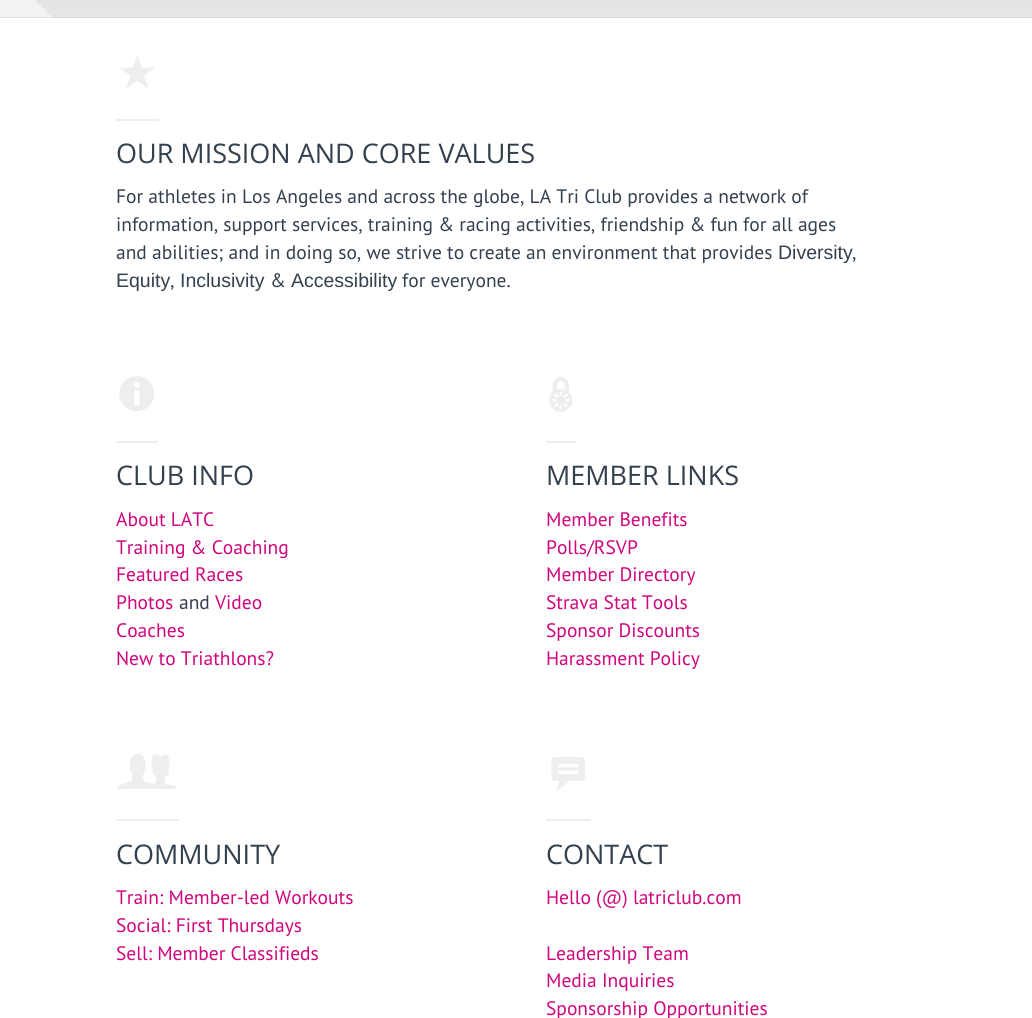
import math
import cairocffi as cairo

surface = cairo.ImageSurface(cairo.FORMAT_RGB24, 1032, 1018)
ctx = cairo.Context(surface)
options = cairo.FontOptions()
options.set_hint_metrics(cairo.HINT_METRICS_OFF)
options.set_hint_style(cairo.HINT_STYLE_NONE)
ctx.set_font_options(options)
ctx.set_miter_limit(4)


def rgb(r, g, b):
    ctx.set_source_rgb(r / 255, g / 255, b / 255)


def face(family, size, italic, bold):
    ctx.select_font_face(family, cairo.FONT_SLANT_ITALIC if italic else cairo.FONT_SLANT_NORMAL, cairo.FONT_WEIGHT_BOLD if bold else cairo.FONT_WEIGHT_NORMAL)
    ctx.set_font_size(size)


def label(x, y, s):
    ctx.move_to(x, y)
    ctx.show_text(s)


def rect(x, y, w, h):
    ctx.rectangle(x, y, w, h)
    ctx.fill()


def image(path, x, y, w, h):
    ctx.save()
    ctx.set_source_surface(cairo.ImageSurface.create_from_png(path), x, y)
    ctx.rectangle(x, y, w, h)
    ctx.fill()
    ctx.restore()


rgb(240, 242, 243)
ctx.paint()
rgb(230, 232, 233)
ctx.new_path()
ctx.move_to(53, -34)
ctx.line_to(53, 18)
ctx.line_to(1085, 18)
ctx.line_to(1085, -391)
ctx.line_to(1032, -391)
ctx.line_to(1032, -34)
ctx.close_path()
ctx.fill()
rgb(229, 231, 232)
ctx.new_path()
ctx.move_to(51, -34)
ctx.line_to(51, 17)
ctx.line_to(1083, 17)
ctx.line_to(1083, -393)
ctx.line_to(1032, -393)
ctx.line_to(1032, -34)
ctx.close_path()
ctx.fill()
ctx.new_path()
ctx.move_to(50, -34)
ctx.line_to(50, 15)
ctx.line_to(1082, 15)
ctx.line_to(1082, -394)
ctx.line_to(1032, -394)
ctx.line_to(1032, -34)
ctx.close_path()
ctx.fill()
rgb(228, 230, 231)
ctx.new_path()
ctx.move_to(48, -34)
ctx.line_to(48, 14)
ctx.line_to(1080, 14)
ctx.line_to(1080, -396)
ctx.line_to(1032, -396)
ctx.line_to(1032, -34)
ctx.close_path()
ctx.fill()
ctx.new_path()
ctx.move_to(47, -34)
ctx.line_to(47, 12)
ctx.line_to(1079, 12)
ctx.line_to(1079, -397)
ctx.line_to(1032, -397)
ctx.line_to(1032, -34)
ctx.close_path()
ctx.fill()
ctx.new_path()
ctx.move_to(45, -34)
ctx.line_to(45, 11)
ctx.line_to(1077, 11)
ctx.line_to(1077, -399)
ctx.line_to(1032, -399)
ctx.line_to(1032, -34)
ctx.close_path()
ctx.fill()
rgb(227, 229, 230)
ctx.new_path()
ctx.move_to(44, -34)
ctx.line_to(44, 9)
ctx.line_to(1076, 9)
ctx.line_to(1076, -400)
ctx.line_to(1032, -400)
ctx.line_to(1032, -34)
ctx.close_path()
ctx.fill()
ctx.new_path()
ctx.move_to(42, -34)
ctx.line_to(42, 8)
ctx.line_to(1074, 8)
ctx.line_to(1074, -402)
ctx.line_to(1032, -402)
ctx.line_to(1032, -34)
ctx.close_path()
ctx.fill()
rgb(226, 228, 229)
ctx.new_path()
ctx.move_to(41, -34)
ctx.line_to(41, 6)
ctx.line_to(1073, 6)
ctx.line_to(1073, -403)
ctx.line_to(1032, -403)
ctx.line_to(1032, -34)
ctx.close_path()
ctx.fill()
ctx.new_path()
ctx.move_to(39, -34)
ctx.line_to(39, 5)
ctx.line_to(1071, 5)
ctx.line_to(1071, -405)
ctx.line_to(1032, -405)
ctx.line_to(1032, -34)
ctx.close_path()
ctx.fill()
ctx.new_path()
ctx.move_to(38, -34)
ctx.line_to(38, 3)
ctx.line_to(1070, 3)
ctx.line_to(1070, -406)
ctx.line_to(1032, -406)
ctx.line_to(1032, -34)
ctx.close_path()
ctx.fill()
rgb(225, 227, 228)
ctx.new_path()
ctx.move_to(36, -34)
ctx.line_to(36, 2)
ctx.line_to(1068, 2)
ctx.line_to(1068, -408)
ctx.line_to(1032, -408)
ctx.line_to(1032, -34)
ctx.close_path()
ctx.fill()
ctx.rectangle(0, 18, 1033, 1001)
ctx.set_source_rgba(0, 0, 0, 0.06)
ctx.stroke()
rgb(255, 255, 255)
rect(0, 18, 1032, 1000)
face('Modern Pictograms', 54, 0, 0)
rgb(238, 238, 238)
label(116, 88, '*')
rect(116, 119, 43, 2)
face('Open Sans', 27, 0, 0)
rgb(52, 64, 78)
label(116, 163, 'OUR MISSION AND CORE VALUES')
face('PT Sans', 19.5, 0, 0)
label(116, 203, 'For athletes in Los Angeles and across the globe, LA Tri Club provides a network of')
label(116, 231, 'information, support services, training & racing activities, friendship & fun for all ages')
label(116, 259, 'and abilities; and in doing so, we strive to create an environment that provides')
face('Liberation Sans', 19.5, 0, 0)
label(778, 259, 'Diversity')
face('PT Sans', 19.5, 0, 0)
label(852, 259, ',')
face('Liberation Sans', 19.5, 0, 0)
label(116, 287, 'Equity')
face('PT Sans', 19.5, 0, 0)
label(170, 287, ',')
face('Liberation Sans', 19.5, 0, 0)
label(180, 287, 'Inclusivity')
face('PT Sans', 19.5, 0, 0)
label(270, 287, '&')
face('Liberation Sans', 19.5, 0, 0)
label(291, 287, 'Accessibility')
face('PT Sans', 19.5, 0, 0)
label(402, 287, 'for everyone.')
face('Modern Pictograms', 54, 0, 0)
rgb(238, 238, 238)
label(116, 410, '=')
rect(116, 441, 42, 2)
face('Open Sans', 27, 0, 0)
rgb(52, 64, 78)
label(116, 485, 'CLUB INFO')
face('PT Sans', 19.5, 0, 0)
rgb(209, 5, 124)
label(116, 526, 'About LATC')
label(116, 554, 'Training & Coaching')
label(116, 581, 'Featured Races')
label(116, 609, 'Photos')
rgb(52, 64, 78)
label(179, 609, 'and')
rgb(209, 5, 124)
label(215, 609, 'Video')
label(116, 637, 'Coaches')
label(116, 665, 'New to Triathlons?')
image('image0.png', 549, 376, 24, 36)
rgb(238, 238, 238)
rect(546, 441, 30, 2)
face('Open Sans', 27, 0, 0)
rgb(52, 64, 78)
label(546, 485, 'MEMBER LINKS')
face('PT Sans', 19.5, 0, 0)
rgb(209, 5, 124)
label(546, 526, 'Member Benefits')
label(546, 554, 'Polls/RSVP')
label(546, 581, 'Member Directory')
label(546, 609, 'Strava Stat Tools')
label(546, 637, 'Sponsor Discounts')
label(546, 665, 'Harassment Policy')
image('image1.png', 117, 753, 59, 36)
rgb(238, 238, 238)
rect(116, 819, 63, 2)
face('Open Sans', 27, 0, 0)
rgb(52, 64, 78)
label(116, 864, 'COMMUNITY')
face('PT Sans', 19.5, 0, 0)
rgb(209, 5, 124)
label(116, 904, 'Train: Member-led Workouts')
label(116, 932, 'Social: First Thursdays')
label(116, 960, 'Sell: Member Classifieds')
image('image2.png', 551, 757, 34, 34)
rgb(238, 238, 238)
rect(546, 819, 45, 2)
face('Open Sans', 27, 0, 0)
rgb(52, 64, 78)
label(546, 864, 'CONTACT')
face('PT Sans', 19.5, 0, 0)
rgb(209, 5, 124)
label(546, 904, 'Hello (@) latriclub.com')
label(546, 960, 'Leadership Team')
label(546, 987, 'Media Inquiries')
label(546, 1015, 'Sponsorship Opportunities')
surface.write_to_png('render.png')
